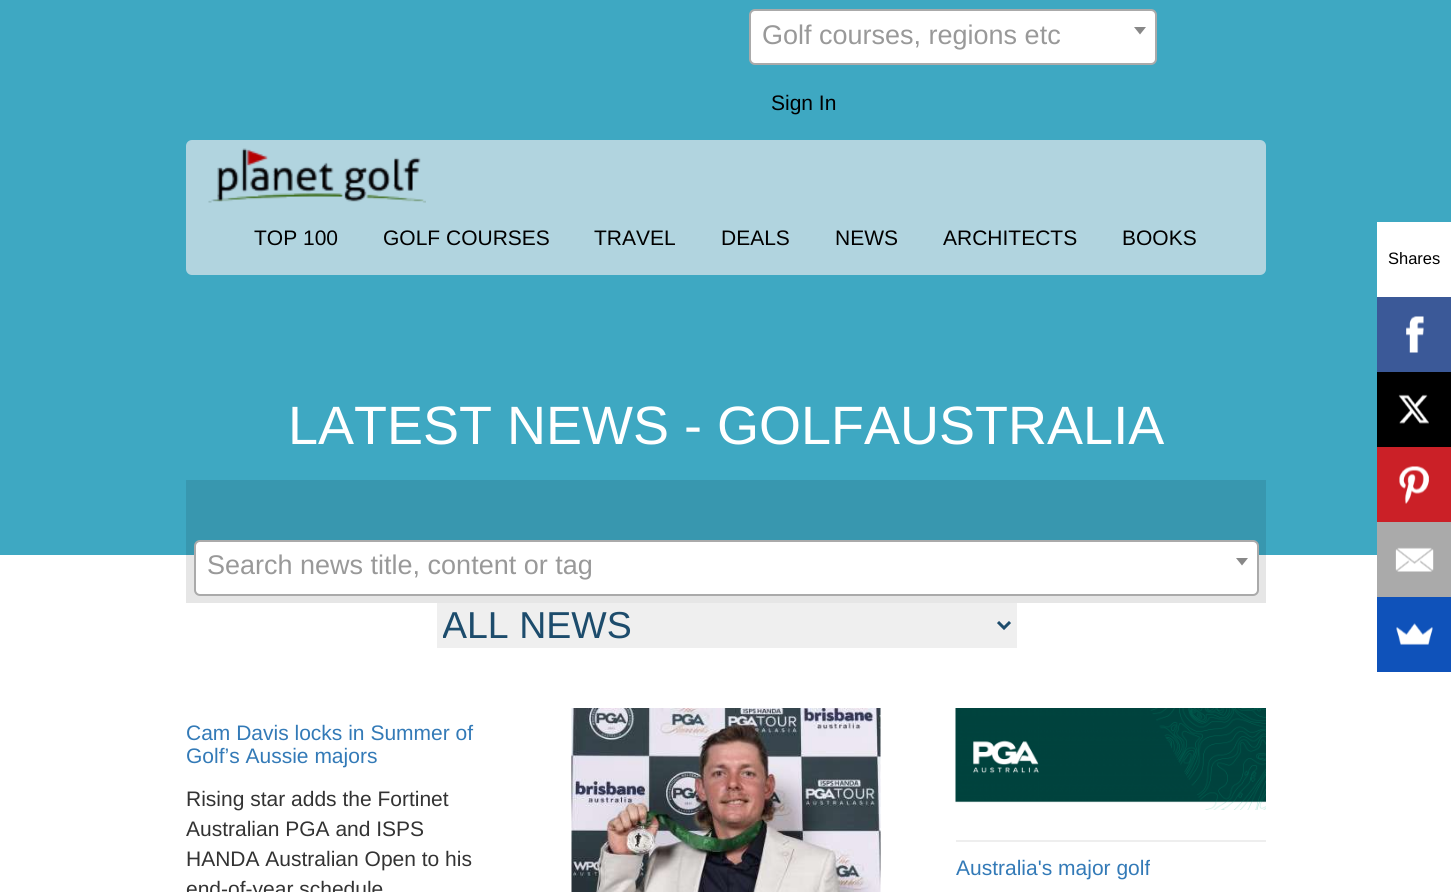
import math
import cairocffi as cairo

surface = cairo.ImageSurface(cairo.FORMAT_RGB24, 1451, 892)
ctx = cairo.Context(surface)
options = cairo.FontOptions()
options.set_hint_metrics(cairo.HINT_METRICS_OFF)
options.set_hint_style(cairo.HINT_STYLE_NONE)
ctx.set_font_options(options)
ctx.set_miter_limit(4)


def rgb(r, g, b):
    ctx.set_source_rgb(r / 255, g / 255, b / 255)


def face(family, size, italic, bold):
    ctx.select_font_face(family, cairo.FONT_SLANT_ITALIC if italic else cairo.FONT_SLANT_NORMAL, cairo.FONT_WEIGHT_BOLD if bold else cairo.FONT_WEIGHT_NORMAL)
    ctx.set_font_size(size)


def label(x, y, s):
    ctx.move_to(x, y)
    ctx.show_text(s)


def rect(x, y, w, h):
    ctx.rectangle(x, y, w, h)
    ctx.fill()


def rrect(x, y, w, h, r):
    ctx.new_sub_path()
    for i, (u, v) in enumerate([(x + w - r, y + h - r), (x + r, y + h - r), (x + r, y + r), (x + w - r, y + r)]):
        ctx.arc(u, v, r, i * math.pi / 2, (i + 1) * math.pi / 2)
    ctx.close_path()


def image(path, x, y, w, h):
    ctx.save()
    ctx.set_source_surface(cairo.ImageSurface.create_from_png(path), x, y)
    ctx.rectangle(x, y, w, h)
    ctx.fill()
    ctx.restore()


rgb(255, 255, 255)
ctx.paint()
rgb(230, 230, 230)
rect(186, 555, 1080, 48)
rgb(62, 168, 194)
rect(0, 0, 1451, 555)
rgb(56, 151, 175)
rect(186, 480, 1080, 75)
rgb(255, 255, 255)
rrect(750, 10, 406, 54, 5)
ctx.fill_preserve()
rgb(170, 170, 170)
ctx.stroke()
face('Liberation Sans', 27, 0, 0)
rgb(153, 153, 153)
label(762, 44, 'Golf courses, regions etc')
rgb(136, 136, 136)
ctx.new_path()
ctx.move_to(1134, 27)
ctx.line_to(1146, 27)
ctx.line_to(1140, 34.5)
ctx.close_path()
ctx.fill()
face('Liberation Sans', 21, 0, 0)
rgb(0, 0, 0)
label(771, 110, 'Sign In')
rgb(177, 212, 223)
rrect(186, 140, 1080, 135, 6)
ctx.fill()
image('image0.png', 208, 148, 218, 55)
rgb(0, 0, 0)
label(254, 245, 'TOP 100')
label(383, 245, 'GOLF COURSES')
label(594, 245, 'TRAVEL')
label(721, 245, 'DEALS')
label(835, 245, 'NEWS')
label(943, 245, 'ARCHITECTS')
label(1122, 245, 'BOOKS')
face('Liberation Sans', 54, 0, 0)
rgb(255, 255, 255)
label(288, 444, 'LATEST NEWS - GOLFAUSTRALIA')
rrect(195, 541, 1063, 54, 5)
ctx.fill_preserve()
rgb(170, 170, 170)
ctx.stroke()
face('Liberation Sans', 27, 0, 0)
rgb(153, 153, 153)
label(207, 574, 'Search news title, content or tag')
rgb(136, 136, 136)
ctx.new_path()
ctx.move_to(1236, 558)
ctx.line_to(1248, 558)
ctx.line_to(1242, 565.5)
ctx.close_path()
ctx.fill()
rgb(239, 239, 239)
rect(437, 603, 580, 45)
ctx.new_path()
ctx.move_to(998, 622)
ctx.line_to(1004, 628)
ctx.line_to(1010, 622)
rgb(29, 76, 108)
ctx.set_line_width(3)
ctx.stroke()
ctx.save()
ctx.rectangle(443, 603, 550, 45)
ctx.clip()
face('Liberation Sans', 37.5, 0, 0)
label(442, 638, 'ALL NEWS')
ctx.restore()
face('Liberation Sans', 21, 0, 0)
rgb(51, 122, 183)
label(186, 740, 'Cam Davis locks in Summer of')
label(186, 763, 'Golf’s Aussie majors')
rgb(51, 51, 51)
label(186, 806, 'Rising star adds the Fortinet')
label(186, 836, 'Australian PGA and ISPS')
label(186, 866, 'HANDA Australian Open to his')
label(186, 896, 'end-of-year schedule')
image('image1.png', 571, 708, 310, 184)
image('image2.png', 955, 708, 311, 102)
rgb(238, 238, 238)
rect(956, 840, 310, 2)
rgb(51, 122, 183)
label(956, 875, 'Australia\'s major golf')
rgb(255, 255, 255)
rect(1377, 222, 74, 75)
face('Liberation Sans', 16.5, 0, 0)
rgb(0, 0, 0)
label(1388, 264, 'Shares')
rgb(59, 89, 152)
rect(1377, 297, 74, 75)
image('image3.png', 1406, 316, 18, 37)
rgb(0, 0, 0)
rect(1377, 372, 74, 75)
image('image4.png', 1398, 394, 31, 30)
rgb(203, 32, 39)
rect(1377, 447, 74, 75)
image('image5.png', 1399, 466, 30, 38)
rgb(170, 170, 170)
rect(1377, 522, 74, 75)
image('image6.png', 1395, 547, 39, 25)
rgb(15, 82, 186)
rect(1377, 597, 74, 75)
image('image7.png', 1396, 623, 37, 22)
surface.write_to_png('render.png')
